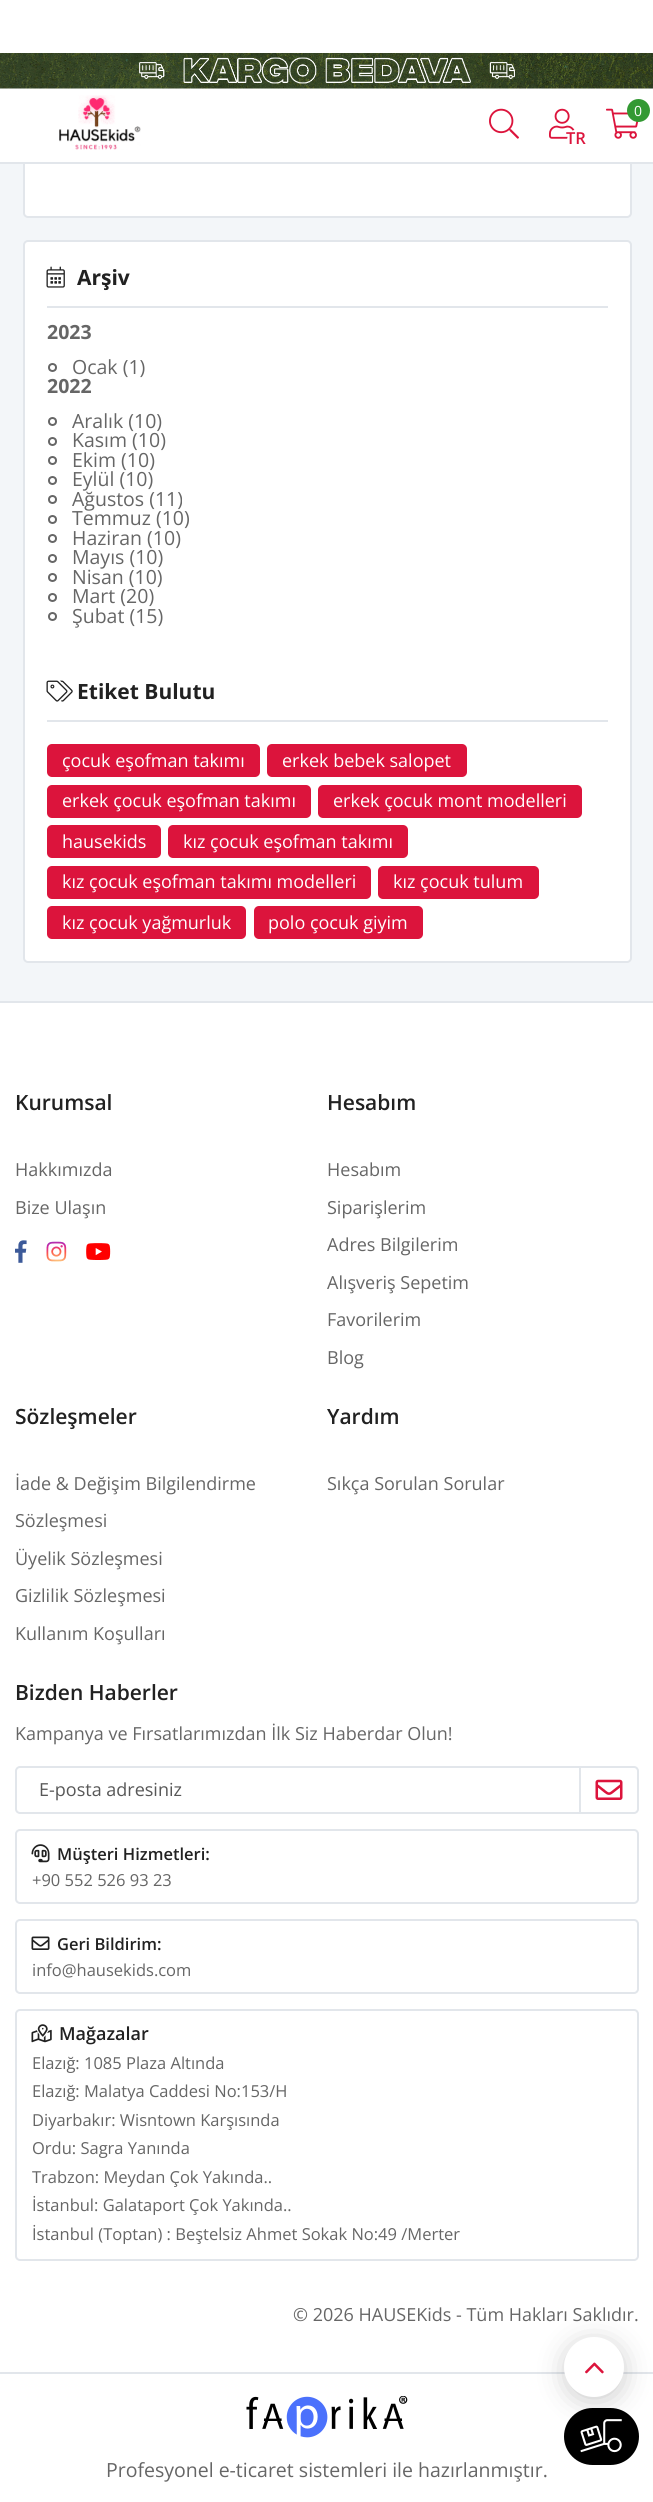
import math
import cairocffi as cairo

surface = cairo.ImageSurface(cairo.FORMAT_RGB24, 653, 2502)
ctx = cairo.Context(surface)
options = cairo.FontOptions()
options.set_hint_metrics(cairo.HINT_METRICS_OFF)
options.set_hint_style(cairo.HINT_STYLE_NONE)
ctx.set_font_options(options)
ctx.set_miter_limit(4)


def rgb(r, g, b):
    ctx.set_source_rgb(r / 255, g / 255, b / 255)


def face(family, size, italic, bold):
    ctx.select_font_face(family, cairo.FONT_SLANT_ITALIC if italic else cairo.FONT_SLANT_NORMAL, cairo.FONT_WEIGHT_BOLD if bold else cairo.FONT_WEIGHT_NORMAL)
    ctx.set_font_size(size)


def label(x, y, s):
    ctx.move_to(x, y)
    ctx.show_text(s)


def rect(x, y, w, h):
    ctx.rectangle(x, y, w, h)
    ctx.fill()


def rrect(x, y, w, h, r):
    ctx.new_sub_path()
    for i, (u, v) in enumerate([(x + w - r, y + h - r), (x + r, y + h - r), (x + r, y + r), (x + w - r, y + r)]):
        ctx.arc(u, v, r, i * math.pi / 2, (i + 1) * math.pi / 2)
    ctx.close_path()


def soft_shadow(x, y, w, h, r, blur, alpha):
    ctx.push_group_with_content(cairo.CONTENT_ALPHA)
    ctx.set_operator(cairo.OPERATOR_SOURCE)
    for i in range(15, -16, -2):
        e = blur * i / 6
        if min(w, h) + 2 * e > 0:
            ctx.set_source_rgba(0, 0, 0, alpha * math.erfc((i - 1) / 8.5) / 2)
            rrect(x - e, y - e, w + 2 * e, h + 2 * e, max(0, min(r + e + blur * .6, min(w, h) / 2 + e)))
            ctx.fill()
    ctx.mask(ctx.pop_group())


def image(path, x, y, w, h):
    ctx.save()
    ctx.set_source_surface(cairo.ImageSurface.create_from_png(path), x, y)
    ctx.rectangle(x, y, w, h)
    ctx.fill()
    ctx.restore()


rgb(243, 246, 249)
ctx.paint()
rgb(255, 255, 255)
rrect(24, -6, 607, 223, 4)
ctx.fill_preserve()
rgb(226, 230, 235)
ctx.stroke()
rgb(255, 255, 255)
rect(0, 0, 653, 162)
image('image0.png', 0, 53, 653, 36)
rgb(226, 230, 235)
rect(0, 162, 653, 2)
image('image1.png', 59, 95, 82, 55)
image('image2.png', 489, 108, 30, 31)
image('image3.png', 549, 108, 26, 31)
rgb(255, 255, 255)
ctx.arc(578.5, 140.5, 11.5, 0, 2 * math.pi)
ctx.fill()
face('Open Sans SemiBold', 16.5, 0, 0)
rgb(220, 20, 60)
label(566, 144, 'TR')
image('image4.png', 606, 108, 33, 31)
rgb(51, 153, 51)
ctx.arc(638.5, 110.5, 11.5, 0, 2 * math.pi)
ctx.fill()
face('Open Sans', 14, 0, 0)
rgb(255, 255, 255)
label(634, 116, '0')
rrect(24, 241, 607, 721, 4)
ctx.fill_preserve()
rgb(226, 230, 235)
ctx.stroke()
rect(47, 306, 561, 2)
image('image5.png', 46, 266, 19, 22)
face('Open Sans', 21, 0, 1)
rgb(33, 33, 33)
label(77, 285, 'Arşiv')
face('Open Sans', 19.5, 0, 1)
rgb(102, 102, 102)
label(47, 339, '2023')
ctx.new_path()
ctx.arc(52.5, 367.5, 3.5, 0, 2 * math.pi)
ctx.stroke()
face('Open Sans', 19.5, 0, 0)
label(72, 374, 'Ocak (1)')
face('Open Sans', 19.5, 0, 1)
label(47, 393, '2022')
ctx.new_path()
ctx.arc(52.5, 421.5, 3.5, 0, 2 * math.pi)
ctx.stroke()
face('Open Sans', 19.5, 0, 0)
label(72, 428, 'Aralık (10)')
ctx.new_path()
ctx.arc(52.5, 441.5, 3.5, 0, 2 * math.pi)
ctx.stroke()
label(72, 447, 'Kasım (10)')
ctx.new_path()
ctx.arc(52.5, 460.5, 3.5, 0, 2 * math.pi)
ctx.stroke()
label(72, 467, 'Ekim (10)')
ctx.new_path()
ctx.arc(52.5, 480.5, 3.5, 0, 2 * math.pi)
ctx.stroke()
label(72, 486, 'Eylül (10)')
ctx.new_path()
ctx.arc(52.5, 499.5, 3.5, 0, 2 * math.pi)
ctx.stroke()
label(72, 506, 'Ağustos (11)')
ctx.new_path()
ctx.arc(52.5, 519.5, 3.5, 0, 2 * math.pi)
ctx.stroke()
label(72, 525, 'Temmuz (10)')
ctx.new_path()
ctx.arc(52.5, 538.5, 3.5, 0, 2 * math.pi)
ctx.stroke()
label(72, 545, 'Haziran (10)')
ctx.new_path()
ctx.arc(52.5, 558.5, 3.5, 0, 2 * math.pi)
ctx.stroke()
label(72, 564, 'Mayıs (10)')
ctx.new_path()
ctx.arc(52.5, 577.5, 3.5, 0, 2 * math.pi)
ctx.stroke()
label(72, 584, 'Nisan (10)')
ctx.new_path()
ctx.arc(52.5, 597.5, 3.5, 0, 2 * math.pi)
ctx.stroke()
label(72, 603, 'Mart (20)')
ctx.new_path()
ctx.arc(52.5, 616.5, 3.5, 0, 2 * math.pi)
ctx.stroke()
label(72, 623, 'Şubat (15)')
rgb(226, 230, 235)
rect(47, 720, 561, 2)
image('image6.png', 46, 680, 27, 22)
face('Open Sans', 21, 0, 1)
rgb(33, 33, 33)
label(77, 699, 'Etiket Bulutu')
rgb(220, 20, 60)
rrect(47, 744, 213, 33, 5)
ctx.fill()
face('Open Sans', 18, 0, 0)
rgb(255, 255, 255)
label(62, 767, 'çocuk eşofman takımı')
rgb(220, 20, 60)
rrect(267, 744, 200, 33, 5)
ctx.fill()
rgb(255, 255, 255)
label(282, 767, 'erkek bebek salopet')
rgb(220, 20, 60)
rrect(47, 785, 264, 33, 5)
ctx.fill()
rgb(255, 255, 255)
label(62, 807, 'erkek çocuk eşofman takımı')
rgb(220, 20, 60)
rrect(318, 785, 264, 33, 5)
ctx.fill()
rgb(255, 255, 255)
label(333, 807, 'erkek çocuk mont modelleri')
rgb(220, 20, 60)
rrect(47, 825, 114, 33, 5)
ctx.fill()
rgb(255, 255, 255)
label(62, 848, 'hausekids')
rgb(220, 20, 60)
rrect(168, 825, 240, 33, 5)
ctx.fill()
rgb(255, 255, 255)
label(183, 848, 'kız çocuk eşofman takımı')
rgb(220, 20, 60)
rrect(47, 866, 324, 33, 5)
ctx.fill()
rgb(255, 255, 255)
label(62, 888, 'kız çocuk eşofman takımı modelleri')
rgb(220, 20, 60)
rrect(378, 866, 161, 33, 5)
ctx.fill()
rgb(255, 255, 255)
label(393, 888, 'kız çocuk tulum')
rgb(220, 20, 60)
rrect(47, 906, 199, 33, 5)
ctx.fill()
rgb(255, 255, 255)
label(62, 929, 'kız çocuk yağmurluk')
rgb(220, 20, 60)
rrect(254, 906, 169, 33, 5)
ctx.fill()
rgb(255, 255, 255)
label(268, 929, 'polo çocuk giyim')
rect(0, 1003, 653, 1369)
rgb(226, 230, 235)
rect(0, 1001, 653, 2)
face('Open Sans SemiBold', 21, 0, 0)
rgb(33, 33, 33)
label(15, 1110, 'Kurumsal')
face('Open Sans', 18, 0, 0)
rgb(102, 102, 102)
label(15, 1176, 'Hakkımızda')
label(15, 1214, 'Bize Ulaşın')
image('image7.png', 15, 1240, 12, 23)
image('image8.png', 46, 1241, 21, 21)
image('image9.png', 86, 1243, 25, 17)
face('Open Sans SemiBold', 21, 0, 0)
rgb(33, 33, 33)
label(327, 1110, 'Hesabım')
face('Open Sans', 18, 0, 0)
rgb(102, 102, 102)
label(327, 1176, 'Hesabım')
label(327, 1214, 'Siparişlerim')
label(327, 1251, 'Adres Bilgilerim')
label(327, 1289, 'Alışveriş Sepetim')
label(327, 1326, 'Favorilerim')
label(327, 1364, 'Blog')
face('Open Sans SemiBold', 21, 0, 0)
rgb(33, 33, 33)
label(15, 1424, 'Sözleşmeler')
face('Open Sans', 18, 0, 0)
rgb(102, 102, 102)
label(15, 1490, 'İade & Değişim Bilgilendirme')
label(15, 1527, 'Sözleşmesi')
label(15, 1565, 'Üyelik Sözleşmesi')
label(15, 1602, 'Gizlilik Sözleşmesi')
label(15, 1640, 'Kullanım Koşulları')
face('Open Sans SemiBold', 21, 0, 0)
rgb(33, 33, 33)
label(327, 1424, 'Yardım')
face('Open Sans', 18, 0, 0)
rgb(102, 102, 102)
label(327, 1490, 'Sıkça Sorulan Sorular')
face('Open Sans SemiBold', 21, 0, 0)
rgb(33, 33, 33)
label(15, 1700, 'Bizden Haberler')
face('Open Sans', 18, 0, 0)
rgb(102, 102, 102)
label(15, 1740, 'Kampanya ve Fırsatlarımızdan İlk Siz Haberdar Olun!')
rrect(16, 1767, 622, 46, 4)
rgb(226, 230, 235)
ctx.stroke()
rgb(87, 87, 87)
label(39, 1796, 'E-posta adresiniz')
rgb(226, 230, 235)
rect(579, 1767, 2, 45)
image('image10.png', 595, 1779, 28, 21)
rrect(16, 1830, 622, 73, 4)
ctx.stroke()
image('image11.png', 31, 1844, 19, 19)
face('Open Sans SemiBold', 16.5, 0, 0)
rgb(33, 33, 33)
label(57, 1860, 'Müşteri Hizmetleri:')
face('Open Sans', 16.5, 0, 0)
rgb(102, 102, 102)
label(32, 1886, '+90 552 526 93 23')
rrect(16, 1920, 622, 73, 4)
rgb(226, 230, 235)
ctx.stroke()
image('image12.png', 31, 1936, 19, 14)
face('Open Sans SemiBold', 16.5, 0, 0)
rgb(33, 33, 33)
label(57, 1950, 'Geri Bildirim:')
face('Open Sans', 16.5, 0, 0)
rgb(102, 102, 102)
label(32, 1976, 'info@hausekids.com')
rrect(16, 2010, 622, 250, 4)
rgb(226, 230, 235)
ctx.stroke()
image('image13.png', 31, 2024, 21, 19)
face('Open Sans SemiBold', 18, 0, 0)
rgb(33, 33, 33)
label(59, 2040, 'Mağazalar')
face('Open Sans', 16.5, 0, 0)
rgb(102, 102, 102)
label(32, 2069, 'Elazığ: 1085 Plaza Altında')
label(32, 2097, 'Elazığ: Malatya Caddesi No:153/H')
label(32, 2126, 'Diyarbakır: Wisntown Karşısında')
label(32, 2154, 'Ordu: Sagra Yanında')
label(32, 2183, 'Trabzon: Meydan Çok Yakında..')
label(32, 2211, 'İstanbul: Galataport Çok Yakında..')
label(32, 2240, 'İstanbul (Toptan) : Beştelsiz Ahmet Sokak No:49 /Merter')
face('Open Sans', 18, 0, 0)
label(293, 2321, '© 2026 HAUSEKids - Tüm Hakları Saklıdır.')
rgb(255, 255, 255)
rect(0, 2374, 653, 128)
rgb(226, 230, 235)
rect(0, 2372, 653, 2)
rgb(0, 0, 0)
soft_shadow(569, 2346, 51, 51, 25.5, 15, 0.25)
rgb(255, 255, 255)
ctx.arc(594, 2367, 30, 0, 2 * math.pi)
ctx.fill()
image('image14.png', 585, 2362, 19, 12)
rgb(0, 0, 0)
rrect(564, 2408, 75, 57, 28.5)
ctx.fill()
image('image15.png', 580, 2419, 42, 34)
image('image16.png', 246, 2396, 162, 42)
face('Open Sans', 19.5, 0, 0)
rgb(102, 102, 102)
label(106, 2477, 'Profesyonel e-ticaret sistemleri ile hazırlanmıştır.')
surface.write_to_png('render.png')
